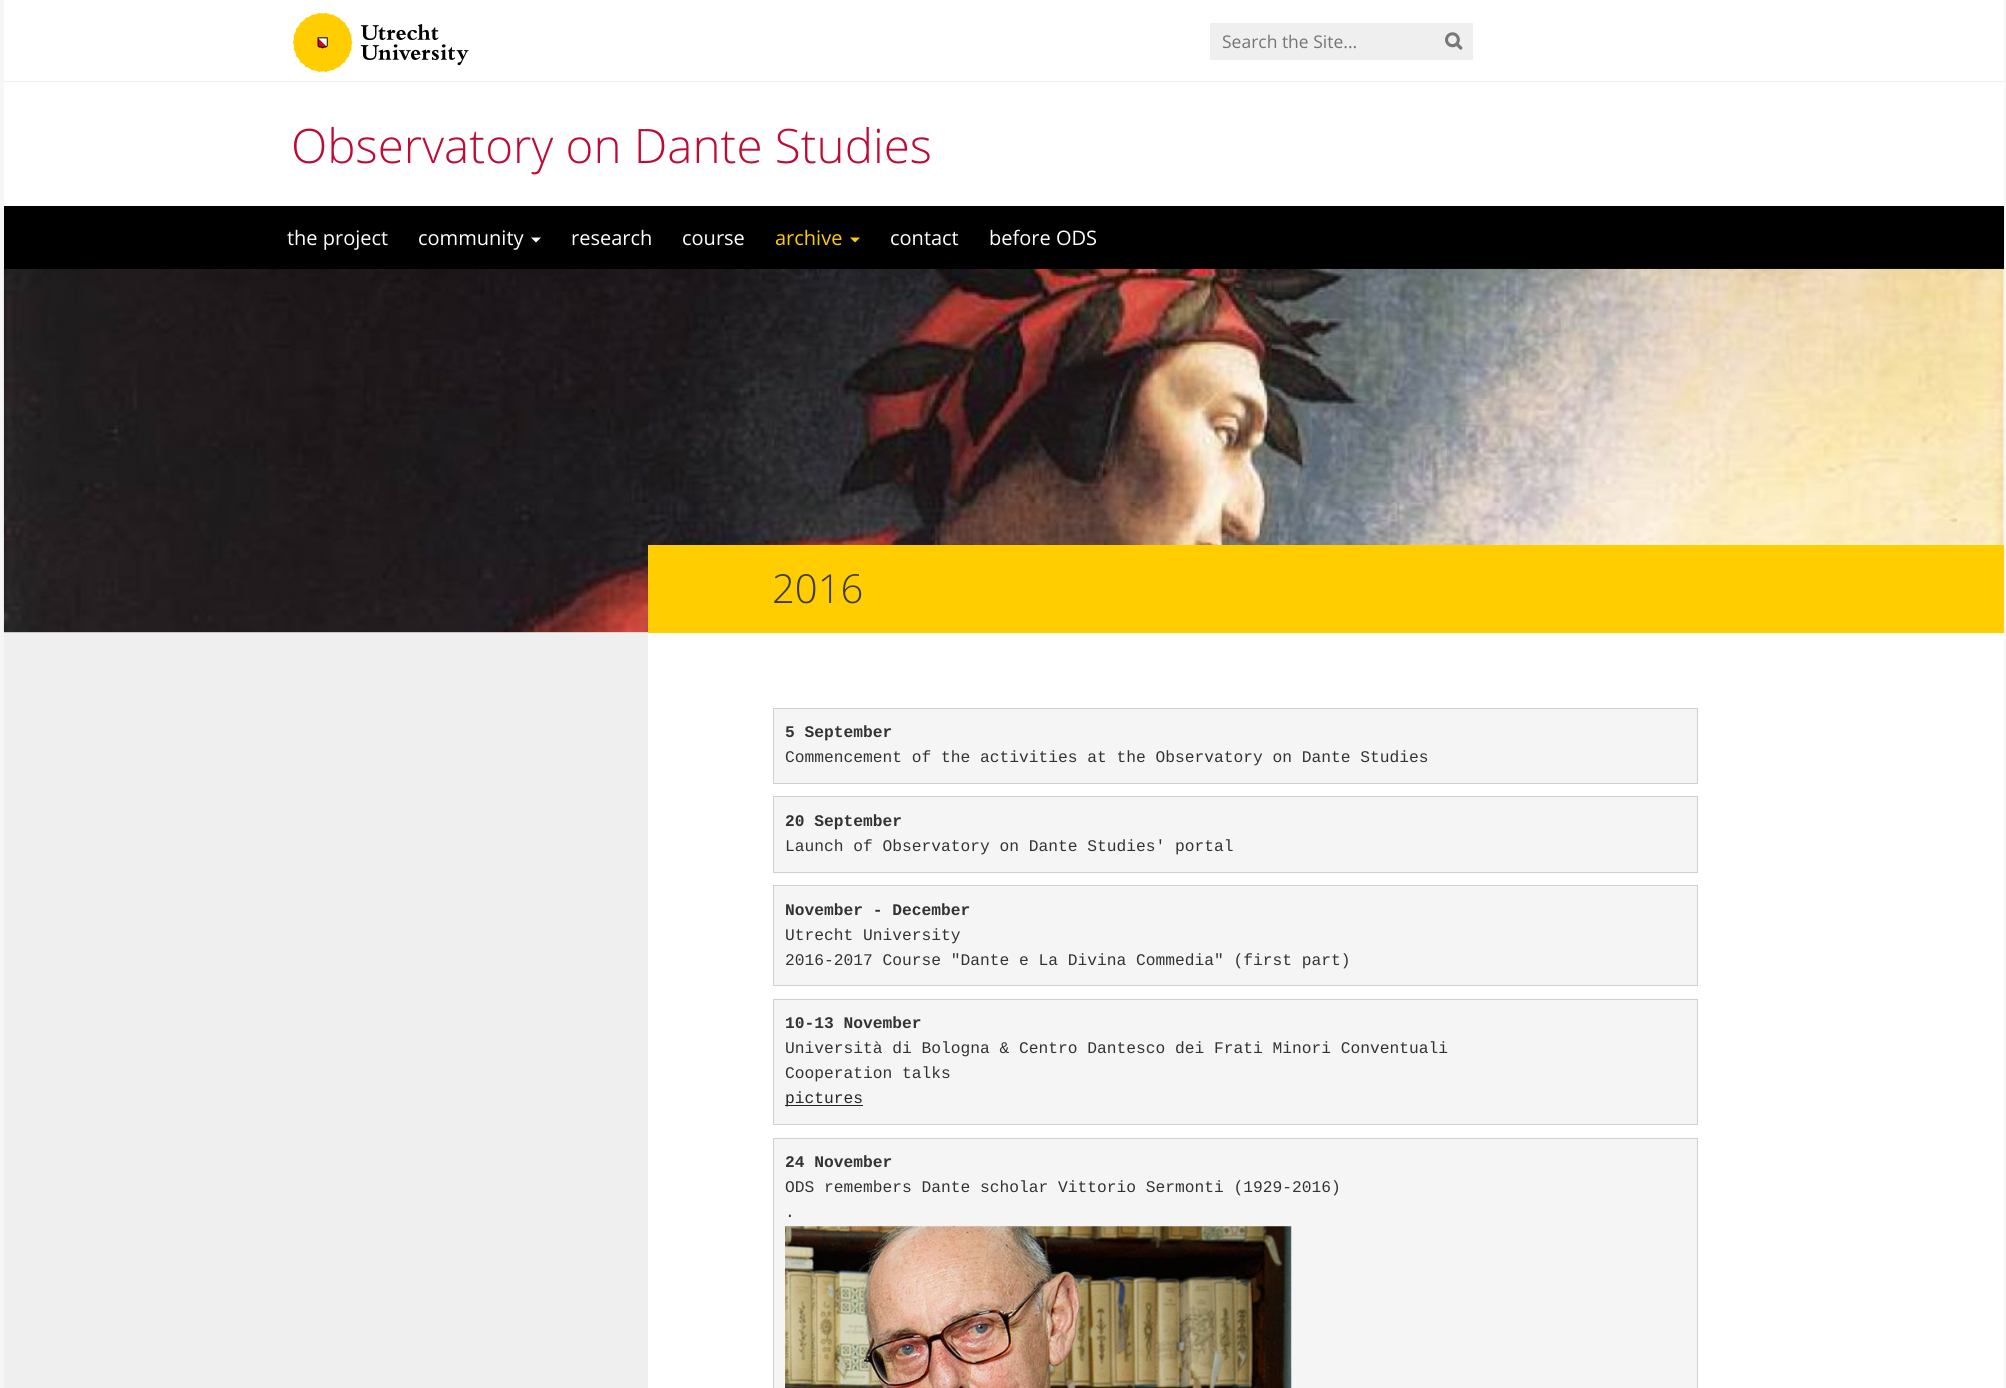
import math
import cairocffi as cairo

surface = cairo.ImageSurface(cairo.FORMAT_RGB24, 2006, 1388)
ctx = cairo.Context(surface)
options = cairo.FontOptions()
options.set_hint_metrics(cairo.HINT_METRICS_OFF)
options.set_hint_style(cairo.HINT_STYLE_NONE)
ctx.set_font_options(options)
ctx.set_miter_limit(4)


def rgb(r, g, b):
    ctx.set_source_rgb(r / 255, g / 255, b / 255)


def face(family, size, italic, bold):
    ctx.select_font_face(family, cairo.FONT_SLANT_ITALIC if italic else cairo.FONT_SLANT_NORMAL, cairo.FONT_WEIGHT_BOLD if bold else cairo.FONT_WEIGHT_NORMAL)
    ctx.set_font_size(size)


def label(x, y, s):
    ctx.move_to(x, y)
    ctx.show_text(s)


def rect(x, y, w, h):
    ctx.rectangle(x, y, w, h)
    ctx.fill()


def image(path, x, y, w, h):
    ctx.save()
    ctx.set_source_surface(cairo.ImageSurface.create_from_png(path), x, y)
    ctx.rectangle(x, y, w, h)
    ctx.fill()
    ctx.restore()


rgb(246, 246, 246)
ctx.paint()
rgb(255, 255, 255)
rect(4, 0, 2000, 206)
rgb(239, 239, 239)
rect(4, 81, 2000, 1)
image('image0.png', 292, 13, 177, 60)
rect(1210, 23, 263, 37)
face('Open Sans', 17.5, 0, 0)
rgb(117, 117, 117)
label(1222, 48, 'Search the Site...')
image('image1.png', 1445, 32, 18, 18)
face('Open Sans Light', 47.5, 0, 0)
rgb(192, 10, 53)
label(291, 163, 'Observatory on Dante Studies')
rgb(0, 0, 0)
rect(4, 206, 2000, 63)
face('Open Sans', 20, 0, 0)
rgb(255, 255, 255)
label(287, 245, 'the project')
label(418, 245, 'community')
ctx.new_path()
ctx.move_to(531, 237.5)
ctx.line_to(541, 237.5)
ctx.line_to(536, 242.5)
ctx.close_path()
ctx.fill()
label(571, 245, 'research')
label(682, 245, 'course')
rgb(255, 205, 0)
label(775, 245, 'archive')
ctx.new_path()
ctx.move_to(850, 237.5)
ctx.line_to(860, 237.5)
ctx.line_to(855, 242.5)
ctx.close_path()
ctx.fill()
rgb(255, 255, 255)
label(890, 245, 'contact')
label(989, 245, 'before ODS')
rgb(239, 239, 239)
rect(4, 633, 644, 755)
rgb(255, 255, 255)
rect(648, 633, 1356, 755)
rect(4, 269, 2000, 364)
image('image2.png', 3, 268, 2001, 365)
rgb(255, 205, 0)
rect(648, 545, 1356, 88)
face('Open Sans Light', 40, 0, 0)
rgb(59, 59, 59)
label(772, 603, '2016')
rgb(245, 245, 245)
ctx.rectangle(773.5, 708.5, 924, 75)
ctx.fill_preserve()
rgb(208, 208, 208)
ctx.set_line_width(1)
ctx.stroke()
face('Liberation Mono', 16.25, 0, 1)
rgb(51, 51, 51)
label(785, 737, '5 September')
face('Liberation Mono', 16.25, 0, 0)
label(785, 762, 'Commencement of the activities at the Observatory on Dante Studies')
rgb(245, 245, 245)
ctx.rectangle(773.5, 796.5, 924, 76)
ctx.fill_preserve()
rgb(208, 208, 208)
ctx.stroke()
face('Liberation Mono', 16.25, 0, 1)
rgb(51, 51, 51)
label(785, 826, '20 September')
face('Liberation Mono', 16.25, 0, 0)
label(785, 851, 'Launch of Observatory on Dante Studies\' portal')
rgb(245, 245, 245)
ctx.rectangle(773.5, 885.5, 924, 100)
ctx.fill_preserve()
rgb(208, 208, 208)
ctx.stroke()
face('Liberation Mono', 16.25, 0, 1)
rgb(51, 51, 51)
label(785, 915, 'November - December')
face('Liberation Mono', 16.25, 0, 0)
label(785, 940, 'Utrecht University')
label(785, 965, '2016-2017 Course "Dante e La Divina Commedia" (first part)')
rgb(245, 245, 245)
ctx.rectangle(773.5, 999.5, 924, 125)
ctx.fill_preserve()
rgb(208, 208, 208)
ctx.stroke()
face('Liberation Mono', 16.25, 0, 1)
rgb(51, 51, 51)
label(785, 1028, '10-13 November')
face('Liberation Mono', 16.25, 0, 0)
label(785, 1053, 'Università di Bologna & Centro Dantesco dei Frati Minori Conventuali')
label(785, 1078, 'Cooperation talks')
rgb(38, 38, 38)
rect(785, 1105, 78, 1)
label(785, 1103, 'pictures')
rgb(245, 245, 245)
ctx.rectangle(773.5, 1138.5, 924, 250)
ctx.fill_preserve()
rgb(208, 208, 208)
ctx.stroke()
face('Liberation Mono', 16.25, 0, 1)
rgb(51, 51, 51)
label(785, 1167, '24 November')
face('Liberation Mono', 16.25, 0, 0)
label(785, 1192, 'ODS remembers Dante scholar Vittorio Sermonti (1929-2016)')
label(785, 1217, '.')
image('image3.png', 785, 1226, 507, 162)
surface.write_to_png('render.png')
